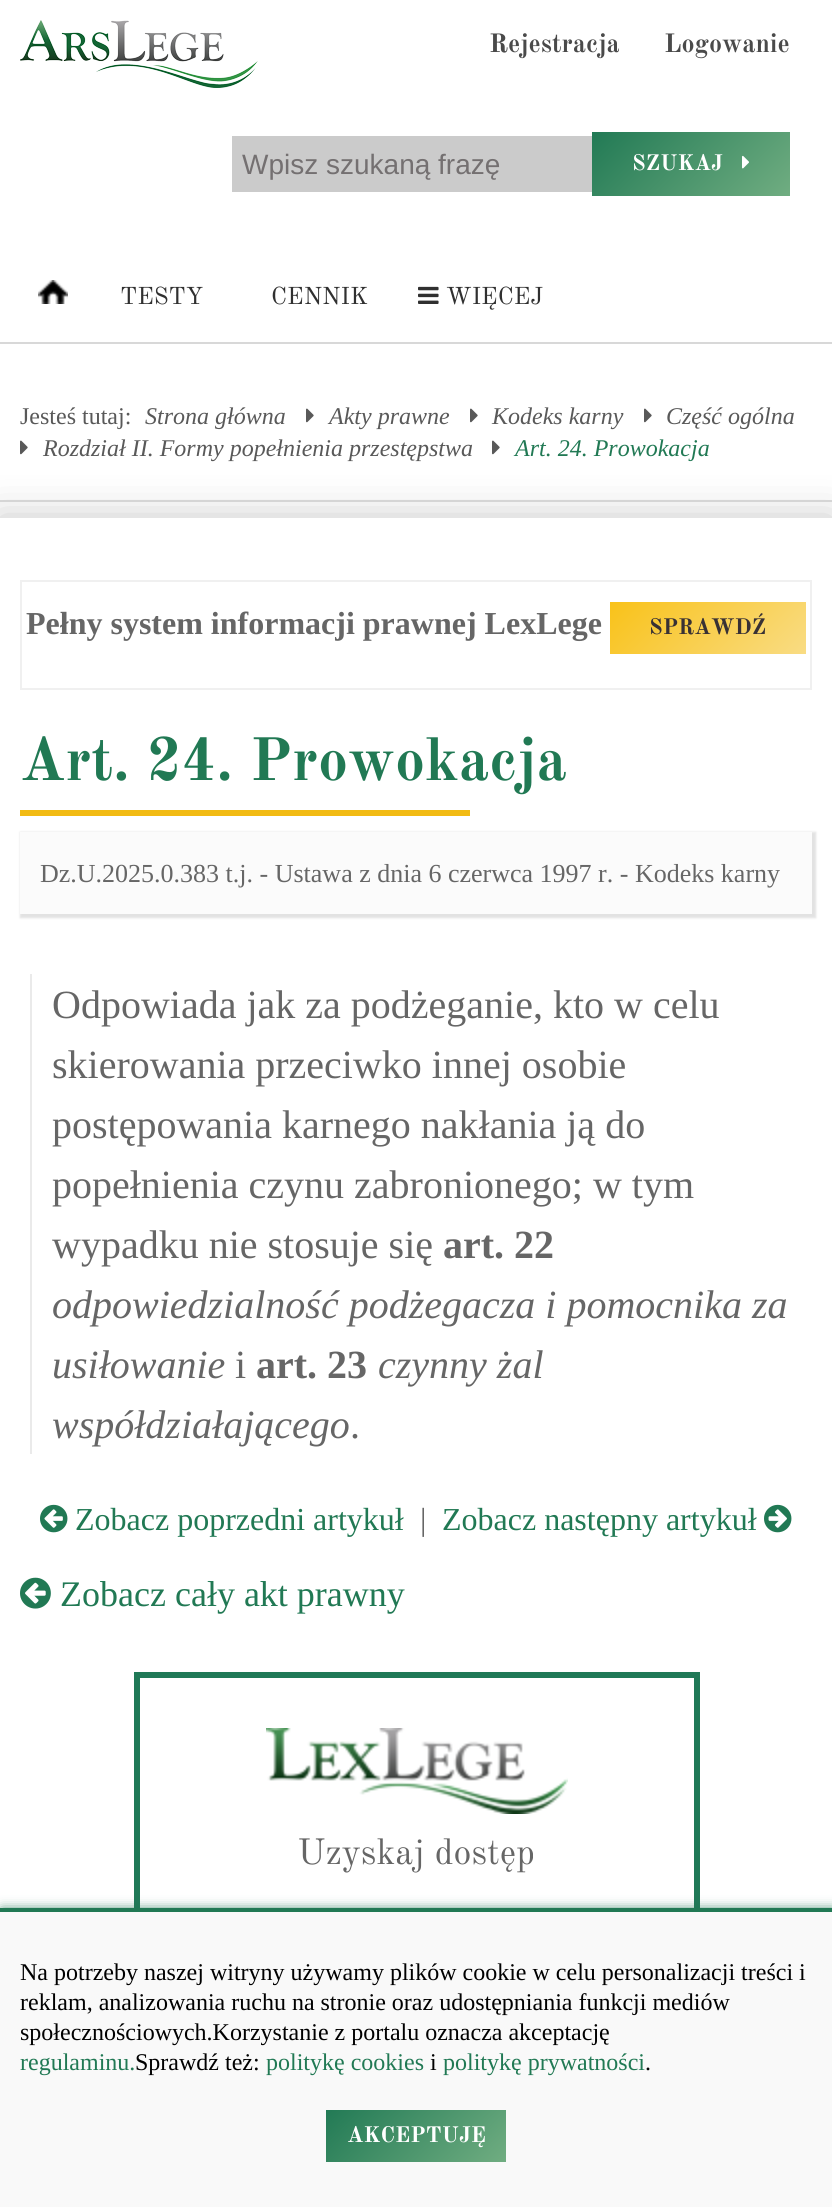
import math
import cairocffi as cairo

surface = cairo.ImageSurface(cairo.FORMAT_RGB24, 832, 2207)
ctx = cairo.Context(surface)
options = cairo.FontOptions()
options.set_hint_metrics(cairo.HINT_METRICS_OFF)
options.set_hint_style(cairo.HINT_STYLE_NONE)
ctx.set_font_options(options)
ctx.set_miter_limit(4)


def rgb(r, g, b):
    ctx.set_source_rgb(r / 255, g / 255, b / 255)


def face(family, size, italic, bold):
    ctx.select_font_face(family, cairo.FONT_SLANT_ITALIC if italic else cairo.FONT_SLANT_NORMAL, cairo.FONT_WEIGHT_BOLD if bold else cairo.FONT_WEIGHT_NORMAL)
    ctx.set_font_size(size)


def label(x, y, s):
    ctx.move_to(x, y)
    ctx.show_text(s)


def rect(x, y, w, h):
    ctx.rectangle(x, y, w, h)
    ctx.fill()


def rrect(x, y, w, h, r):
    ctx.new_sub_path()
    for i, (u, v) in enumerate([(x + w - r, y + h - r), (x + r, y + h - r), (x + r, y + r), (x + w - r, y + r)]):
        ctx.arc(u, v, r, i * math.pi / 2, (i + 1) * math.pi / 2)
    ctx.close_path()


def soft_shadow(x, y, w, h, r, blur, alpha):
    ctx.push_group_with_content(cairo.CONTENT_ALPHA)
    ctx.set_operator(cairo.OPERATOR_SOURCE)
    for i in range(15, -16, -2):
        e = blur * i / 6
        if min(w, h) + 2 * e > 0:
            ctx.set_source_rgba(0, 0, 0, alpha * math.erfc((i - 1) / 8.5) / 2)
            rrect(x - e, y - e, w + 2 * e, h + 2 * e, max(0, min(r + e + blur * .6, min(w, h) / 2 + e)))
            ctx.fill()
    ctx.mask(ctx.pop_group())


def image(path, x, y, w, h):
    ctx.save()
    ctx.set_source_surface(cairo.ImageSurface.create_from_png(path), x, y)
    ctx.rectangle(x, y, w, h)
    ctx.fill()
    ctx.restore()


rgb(255, 255, 255)
ctx.paint()
image('image0.png', 20, 20, 238, 68)
face('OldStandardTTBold', 26, 0, 1)
rgb(74, 74, 74)
label(489, 52, 'Rejestracja')
label(664, 52, 'Logowanie')
rgb(203, 203, 203)
rect(232, 136, 360, 56)
face('Liberation Sans', 28, 0, 0)
rgb(116, 112, 113)
label(242, 174, 'Wpisz szukaną frazę')
gradient = cairo.LinearGradient(659, 65, 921, 327)
gradient.add_color_stop_rgba(0, 0.133, 0.478, 0.333, 1)
gradient.add_color_stop_rgba(0.5, 0.439, 0.678, 0.506, 1)
gradient.add_color_stop_rgba(1, 0.133, 0.478, 0.333, 1)
ctx.set_source(gradient)
rect(592, 132, 198, 64)
face('OldStandardTTBold', 22, 0, 1)
rgb(255, 255, 255)
label(632, 170, 'SZUKAJ')
image('image1.png', 742, 155, 7, 14)
image('image2.png', 38, 280, 30, 24)
face('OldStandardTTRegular', 24, 0, 0)
rgb(48, 48, 48)
label(120, 304, 'TESTY')
label(271, 304, 'CENNIK')
image('image3.png', 418, 286, 21, 18)
label(446, 304, 'WIĘCEJ')
rgb(216, 216, 216)
rect(0, 342, 832, 2)
face('Liberation Serif', 24, 0, 0)
rgb(89, 89, 89)
label(20, 424, 'Jesteś tutaj:')
face('Liberation Serif', 24, 1, 0)
label(145, 424, 'Strona główna')
image('image4.png', 306, 408, 8, 15)
label(329, 424, 'Akty prawne')
image('image4.png', 470, 408, 8, 15)
label(492, 424, 'Kodeks karny')
image('image4.png', 644, 408, 8, 15)
label(666, 424, 'Część ogólna')
image('image4.png', 20, 440, 8, 15)
label(43, 456, 'Rozdział II. Formy popełnienia przestępstwa')
image('image4.png', 492, 440, 8, 15)
rgb(33, 121, 84)
label(515, 456, 'Art. 24. Prowokacja')
rgb(216, 216, 216)
rect(0, 500, 832, 2)
ctx.save()
ctx.rectangle(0, 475, 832, 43)
ctx.clip()
rgb(204, 204, 204)
soft_shadow(-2, 516, 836, 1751, 0, 20, 1)
ctx.restore()
ctx.rectangle(21, 581, 790, 108)
rgb(240, 240, 240)
ctx.stroke()
face('Liberation Serif', 32, 0, 1)
rgb(102, 102, 102)
label(26, 634, 'Pełny system informacji prawnej LexLege')
gradient = cairo.LinearGradient(682, 530, 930, 778)
gradient.add_color_stop_rgba(0, 0.976, 0.761, 0.098, 1)
gradient.add_color_stop_rgba(0.5, 0.976, 0.863, 0.518, 1)
gradient.add_color_stop_rgba(1, 0.976, 0.761, 0.098, 1)
ctx.set_source(gradient)
rect(610, 602, 196, 52)
face('OldStandardTTBold', 22, 0, 1)
rgb(56, 49, 52)
label(649, 634, 'SPRAWDŹ')
face('OldStandardTTBold', 60, 0, 1)
rgb(33, 121, 84)
label(20, 780, 'Art. 24. Prowokacja')
rgb(242, 187, 20)
rect(20, 810, 450, 6)
rgb(226, 226, 226)
soft_shadow(20, 832, 796, 86, 0, 1, 1)
rgb(251, 251, 251)
rect(20, 832, 792, 82)
face('Liberation Serif', 26, 0, 0)
rgb(102, 102, 102)
label(40, 882, 'Dz.U.2025.0.383 t.j. - Ustawa z dnia 6 czerwca 1997 r. - Kodeks karny')
rgb(234, 234, 234)
rect(30, 974, 2, 480)
face('Liberation Serif', 40, 0, 0)
rgb(102, 102, 102)
label(52, 1018, 'Odpowiada jak za podżeganie, kto w celu')
label(52, 1078, 'skierowania przeciwko innej osobie')
label(52, 1138, 'postępowania karnego nakłania ją do')
label(52, 1198, 'popełnienia czynu zabronionego; w tym')
label(52, 1258, 'wypadku nie stosuje się')
face('Liberation Serif', 40, 0, 1)
label(443, 1258, 'art. 22')
face('Liberation Serif', 40, 1, 0)
label(52, 1318, 'odpowiedzialność podżegacza i pomocnika za')
label(52, 1378, 'usiłowanie')
face('Liberation Serif', 40, 0, 0)
label(235, 1378, 'i')
face('Liberation Serif', 40, 0, 1)
label(256, 1378, 'art. 23')
face('Liberation Serif', 40, 1, 0)
label(378, 1378, 'czynny żal')
label(52, 1438, 'współdziałającego')
face('Liberation Serif', 40, 0, 0)
label(350, 1438, '.')
image('image5.png', 40, 1504, 28, 29)
face('Liberation Serif', 32, 0, 0)
rgb(33, 121, 84)
label(75, 1530, 'Zobacz poprzedni artykuł')
rgb(102, 102, 102)
label(420, 1530, '|')
rgb(33, 121, 84)
label(442, 1530, 'Zobacz następny artykuł')
image('image6.png', 764, 1504, 28, 29)
image('image7.png', 20, 1577, 31, 32)
face('Liberation Serif', 36, 0, 0)
label(60, 1606, 'Zobacz cały akt prawny')
ctx.rectangle(137, 1675, 560, 514)
rgb(32, 121, 87)
ctx.set_line_width(6)
ctx.stroke()
image('image8.png', 266, 1728, 302, 86)
face('OldStandardTTRegular', 36, 0, 0)
rgb(102, 102, 102)
label(297, 1864, 'Uzyskaj dostęp')
rgb(33, 121, 84)
soft_shadow(2, 1910, 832, 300, 0, 6, 1)
rgb(249, 249, 249)
rect(0, 1912, 832, 295)
rgb(33, 121, 84)
rect(0, 1908, 832, 4)
face('Liberation Serif', 24, 0, 0)
rgb(0, 0, 0)
label(20, 1980, 'Na potrzeby naszej witryny używamy plików cookie w celu personalizacji treści i')
label(20, 2010, 'reklam, analizowania ruchu na stronie oraz udostępniania funkcji mediów')
label(20, 2040, 'społecznościowych.Korzystanie z portalu oznacza akceptację')
rgb(33, 121, 84)
label(20, 2070, 'regulaminu.')
rgb(0, 0, 0)
label(135, 2070, 'Sprawdź też:')
rgb(33, 121, 84)
label(266, 2070, 'politykę cookies')
rgb(0, 0, 0)
label(430, 2070, 'i')
rgb(33, 121, 84)
label(443, 2070, 'politykę prywatności')
rgb(0, 0, 0)
label(645, 2070, '.')
gradient = cairo.LinearGradient(390, 2046, 622, 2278)
gradient.add_color_stop_rgba(0, 0.133, 0.478, 0.333, 1)
gradient.add_color_stop_rgba(0.5, 0.439, 0.678, 0.506, 1)
gradient.add_color_stop_rgba(1, 0.133, 0.478, 0.333, 1)
ctx.set_source(gradient)
rect(326, 2110, 180, 52)
face('OldStandardTTBold', 22, 0, 1)
rgb(255, 255, 255)
label(347, 2142, 'AKCEPTUJĘ')
surface.write_to_png('render.png')
